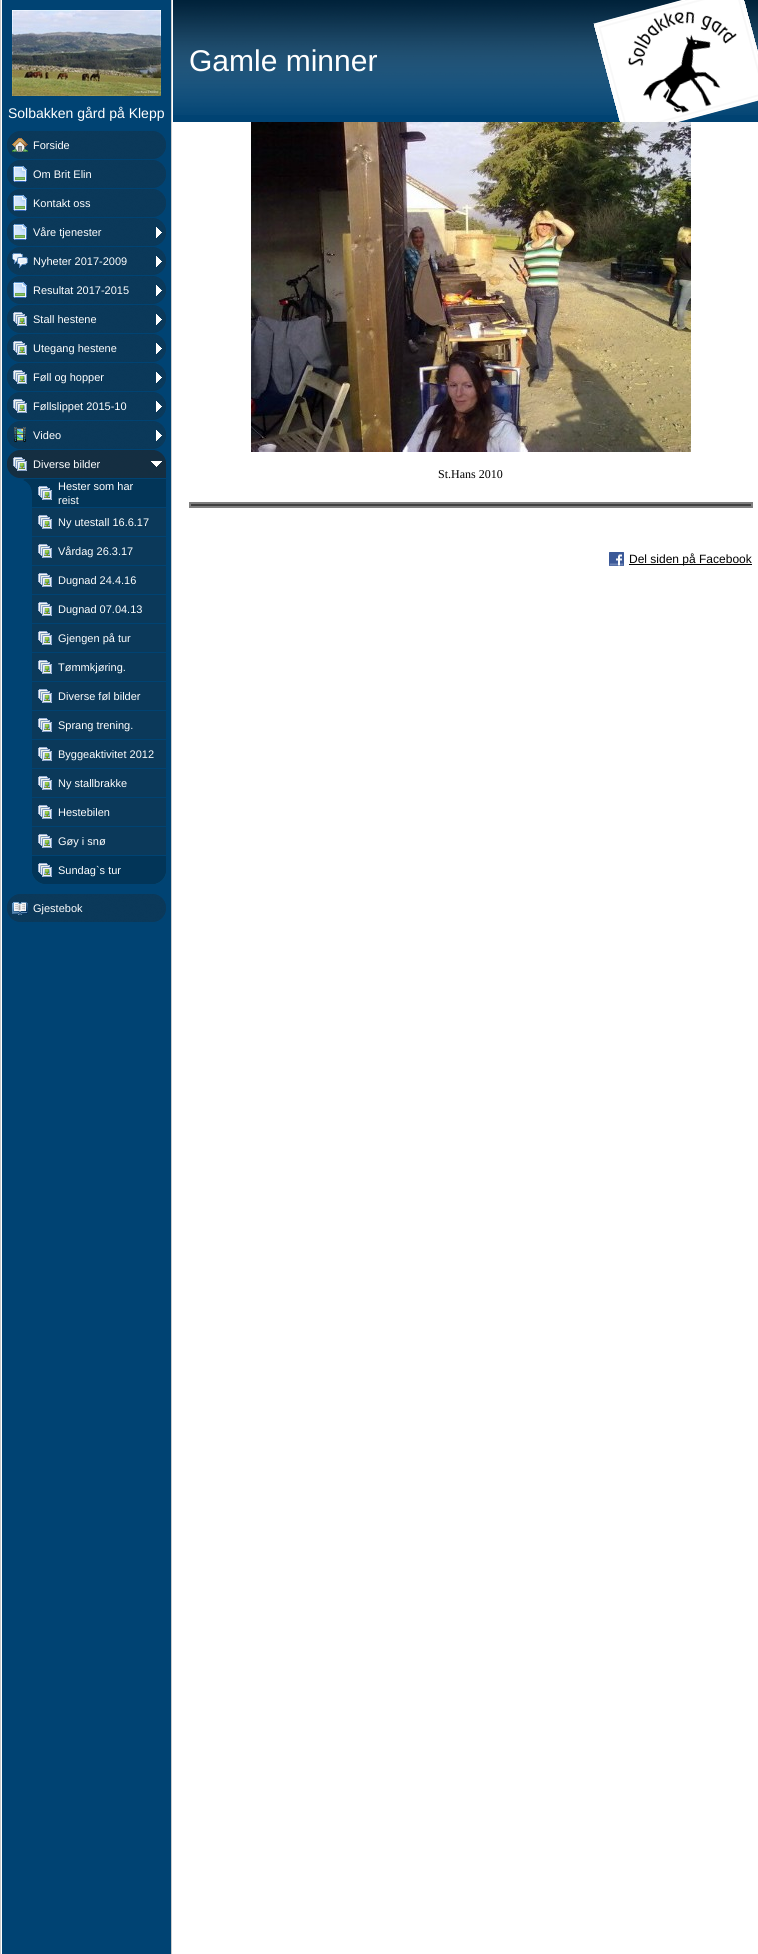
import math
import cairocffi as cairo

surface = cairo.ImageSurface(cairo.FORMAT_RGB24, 758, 1954)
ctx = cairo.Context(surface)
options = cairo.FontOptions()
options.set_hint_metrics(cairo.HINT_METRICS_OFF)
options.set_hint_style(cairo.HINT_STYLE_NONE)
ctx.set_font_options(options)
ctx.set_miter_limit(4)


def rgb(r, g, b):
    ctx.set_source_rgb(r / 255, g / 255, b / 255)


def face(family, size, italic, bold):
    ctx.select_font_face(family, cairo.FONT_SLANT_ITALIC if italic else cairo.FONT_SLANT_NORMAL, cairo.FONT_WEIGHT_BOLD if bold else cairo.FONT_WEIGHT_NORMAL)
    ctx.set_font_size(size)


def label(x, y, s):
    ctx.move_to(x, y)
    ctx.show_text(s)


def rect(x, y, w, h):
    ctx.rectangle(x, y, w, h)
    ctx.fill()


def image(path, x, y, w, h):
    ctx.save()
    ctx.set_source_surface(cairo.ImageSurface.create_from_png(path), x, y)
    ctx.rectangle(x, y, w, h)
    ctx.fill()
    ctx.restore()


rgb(255, 255, 255)
ctx.paint()
rgb(204, 204, 204)
rect(0, 0, 1, 1954)
rgb(0, 67, 115)
rect(2, 0, 169, 1954)
image('image0.png', 12, 10, 149, 86)
face('Liberation Sans', 14, 0, 0)
rgb(255, 255, 255)
label(8, 118, 'Solbakken gård på Klepp')
image('image1.png', 7, 131, 159, 28)
image('image2.png', 12, 138, 16, 14)
face('Liberation Sans', 11, 0, 0)
label(33, 149, 'Forside')
image('image1.png', 7, 160, 159, 28)
image('image3.png', 13, 166, 14, 16)
label(33, 178, 'Om Brit Elin')
image('image1.png', 7, 189, 159, 28)
image('image3.png', 13, 195, 14, 16)
label(33, 207, 'Kontakt oss')
image('image1.png', 7, 218, 159, 28)
image('image3.png', 13, 224, 14, 16)
image('image4.png', 156, 227, 6, 11)
label(33, 236, 'Våre tjenester')
image('image1.png', 7, 247, 159, 28)
image('image5.png', 12, 253, 16, 15)
image('image4.png', 156, 256, 6, 11)
label(33, 265, 'Nyheter 2017-2009')
image('image1.png', 7, 276, 159, 28)
image('image3.png', 13, 282, 14, 16)
image('image4.png', 156, 285, 6, 11)
label(33, 294, 'Resultat 2017-2015')
image('image1.png', 7, 305, 159, 28)
image('image6.png', 13, 312, 14, 14)
image('image4.png', 156, 314, 6, 11)
label(33, 323, 'Stall hestene')
image('image1.png', 7, 334, 159, 28)
image('image6.png', 13, 341, 14, 14)
image('image4.png', 156, 343, 6, 11)
label(33, 352, 'Utegang hestene')
image('image1.png', 7, 363, 159, 28)
image('image6.png', 13, 370, 14, 14)
image('image4.png', 156, 372, 6, 11)
label(33, 381, 'Føll og hopper')
image('image1.png', 7, 392, 159, 28)
image('image6.png', 13, 399, 14, 14)
image('image4.png', 156, 401, 6, 11)
label(33, 410, 'Føllslippet 2015-10')
image('image1.png', 7, 421, 159, 28)
image('image7.png', 14, 427, 12, 15)
image('image4.png', 156, 430, 6, 11)
label(33, 439, 'Video')
image('image8.png', 7, 450, 159, 28)
image('image9.png', 13, 457, 14, 14)
image('image10.png', 151, 461, 11, 6)
label(33, 468, 'Diverse bilder')
image('image11.png', 23, 479, 143, 28)
image('image12.png', 38, 486, 14, 14)
label(58, 490, 'Hester som har')
label(58, 504, 'reist')
rgb(11, 57, 90)
rect(32, 508, 134, 28)
image('image13.png', 38, 515, 14, 14)
rgb(255, 255, 255)
label(58, 526, 'Ny utestall 16.6.17')
rgb(11, 57, 90)
rect(32, 537, 134, 28)
image('image13.png', 38, 544, 14, 14)
rgb(255, 255, 255)
label(58, 555, 'Vårdag 26.3.17')
rgb(11, 57, 90)
rect(32, 566, 134, 28)
image('image13.png', 38, 573, 14, 14)
rgb(255, 255, 255)
label(58, 584, 'Dugnad 24.4.16')
rgb(11, 57, 90)
rect(32, 595, 134, 28)
image('image13.png', 38, 602, 14, 14)
rgb(255, 255, 255)
label(58, 613, 'Dugnad 07.04.13')
rgb(11, 57, 90)
rect(32, 624, 134, 28)
image('image13.png', 38, 631, 14, 14)
rgb(255, 255, 255)
label(58, 642, 'Gjengen på tur')
rgb(11, 57, 90)
rect(32, 653, 134, 28)
image('image13.png', 38, 660, 14, 14)
rgb(255, 255, 255)
label(58, 671, 'Tømmkjøring.')
rgb(11, 57, 90)
rect(32, 682, 134, 28)
image('image13.png', 38, 689, 14, 14)
rgb(255, 255, 255)
label(58, 700, 'Diverse føl bilder')
rgb(11, 57, 90)
rect(32, 711, 134, 28)
image('image13.png', 38, 718, 14, 14)
rgb(255, 255, 255)
label(58, 729, 'Sprang trening.')
rgb(11, 57, 90)
rect(32, 740, 134, 28)
image('image13.png', 38, 747, 14, 14)
rgb(255, 255, 255)
label(58, 758, 'Byggeaktivitet 2012')
rgb(11, 57, 90)
rect(32, 769, 134, 28)
image('image13.png', 38, 776, 14, 14)
rgb(255, 255, 255)
label(58, 787, 'Ny stallbrakke')
rgb(11, 57, 90)
rect(32, 798, 134, 28)
image('image13.png', 38, 805, 14, 14)
rgb(255, 255, 255)
label(58, 816, 'Hestebilen')
rgb(11, 57, 90)
rect(32, 827, 134, 28)
image('image13.png', 38, 834, 14, 14)
rgb(255, 255, 255)
label(58, 845, 'Gøy i snø')
image('image14.png', 32, 856, 134, 28)
image('image12.png', 38, 863, 14, 14)
label(58, 874, 'Sundag`s tur')
image('image1.png', 7, 894, 159, 28)
image('image15.png', 12, 902, 16, 13)
label(33, 912, 'Gjestebok')
rgb(204, 204, 204)
rect(171, 0, 1, 1954)
rgb(0, 67, 115)
rect(173, 0, 585, 122)
image('image16.png', 173, 0, 585, 115)
face('Liberation Sans', 30, 0, 0)
rgb(255, 255, 255)
label(189, 71, 'Gamle minner')
image('image17.png', 593, 0, 165, 122)
image('image18.png', 251, 122, 440, 330)
face('Liberation Serif', 12, 0, 0)
rgb(0, 0, 0)
label(438, 478, 'St.Hans 2010')
image('image19.png', 189, 502, 564, 6)
image('image20.png', 609, 552, 15, 14)
rect(629, 564, 123, 1)
face('Liberation Sans', 12, 0, 0)
label(629, 563, 'Del siden på Facebook')
surface.write_to_png('render.png')
